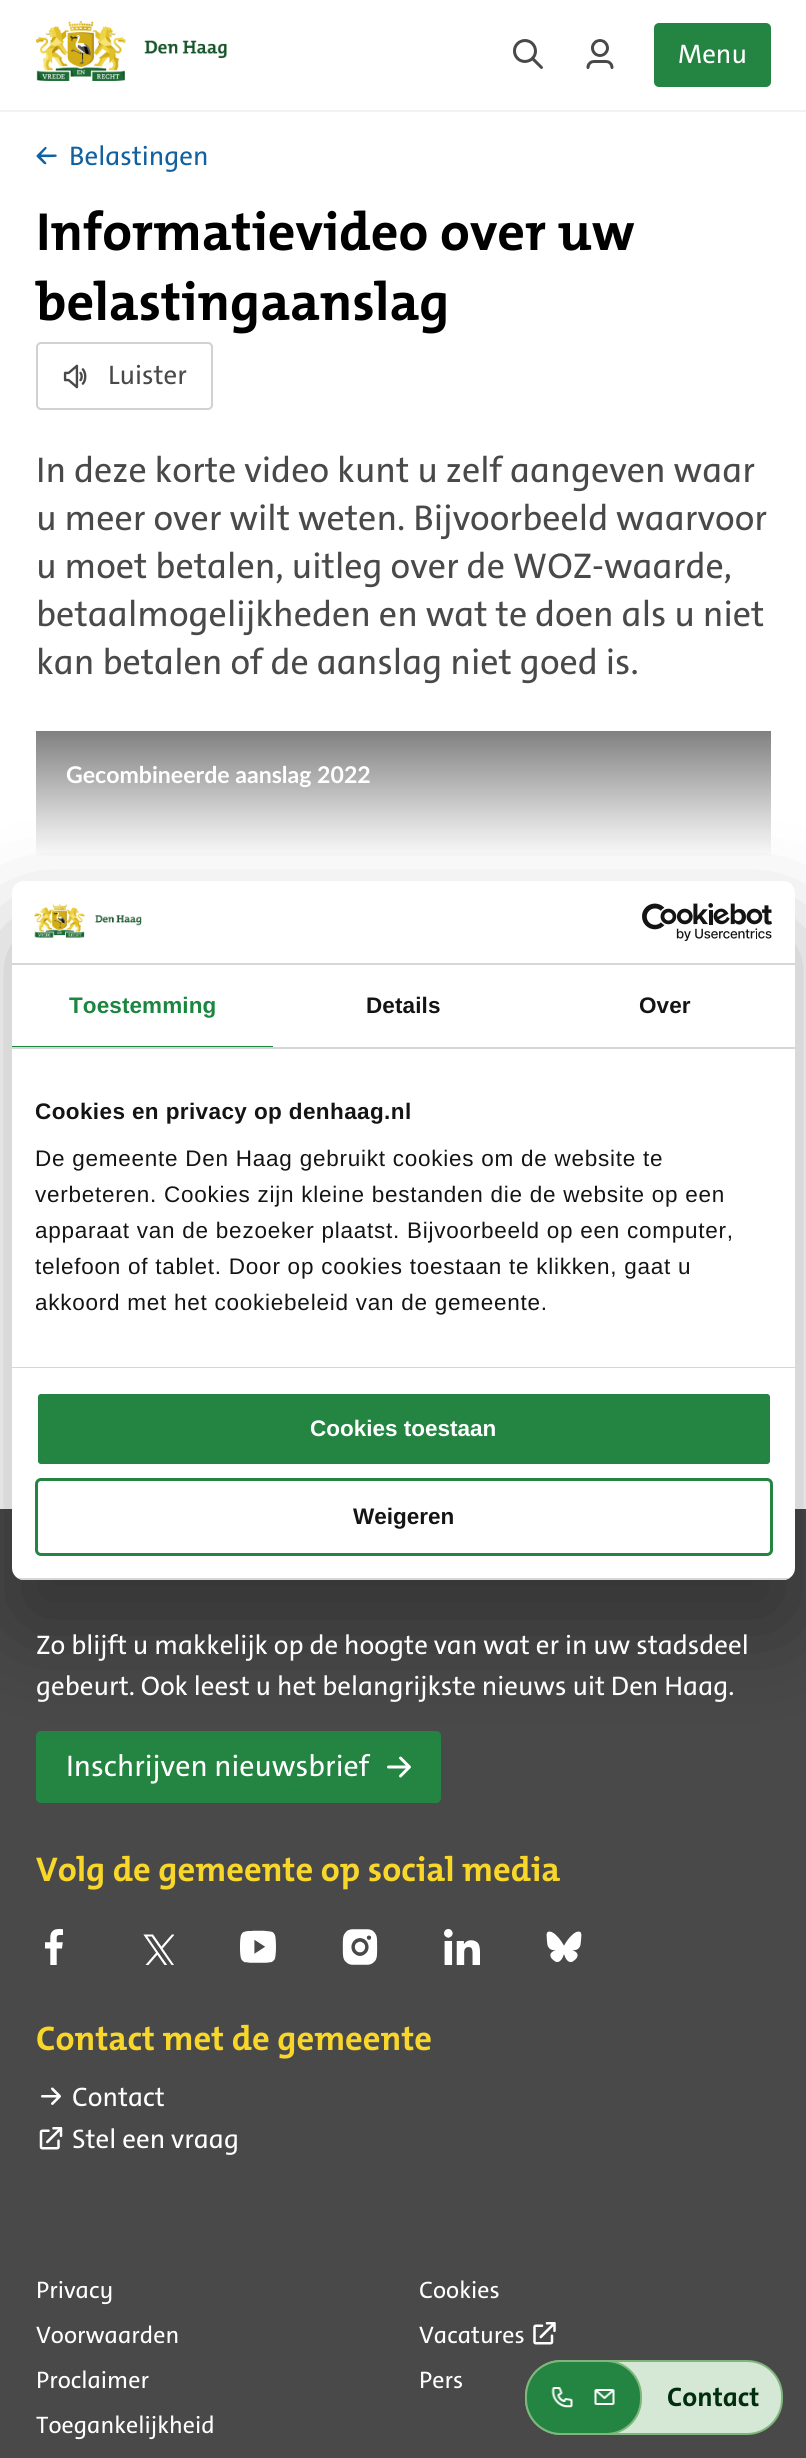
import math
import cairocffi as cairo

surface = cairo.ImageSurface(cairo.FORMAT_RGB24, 806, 2458)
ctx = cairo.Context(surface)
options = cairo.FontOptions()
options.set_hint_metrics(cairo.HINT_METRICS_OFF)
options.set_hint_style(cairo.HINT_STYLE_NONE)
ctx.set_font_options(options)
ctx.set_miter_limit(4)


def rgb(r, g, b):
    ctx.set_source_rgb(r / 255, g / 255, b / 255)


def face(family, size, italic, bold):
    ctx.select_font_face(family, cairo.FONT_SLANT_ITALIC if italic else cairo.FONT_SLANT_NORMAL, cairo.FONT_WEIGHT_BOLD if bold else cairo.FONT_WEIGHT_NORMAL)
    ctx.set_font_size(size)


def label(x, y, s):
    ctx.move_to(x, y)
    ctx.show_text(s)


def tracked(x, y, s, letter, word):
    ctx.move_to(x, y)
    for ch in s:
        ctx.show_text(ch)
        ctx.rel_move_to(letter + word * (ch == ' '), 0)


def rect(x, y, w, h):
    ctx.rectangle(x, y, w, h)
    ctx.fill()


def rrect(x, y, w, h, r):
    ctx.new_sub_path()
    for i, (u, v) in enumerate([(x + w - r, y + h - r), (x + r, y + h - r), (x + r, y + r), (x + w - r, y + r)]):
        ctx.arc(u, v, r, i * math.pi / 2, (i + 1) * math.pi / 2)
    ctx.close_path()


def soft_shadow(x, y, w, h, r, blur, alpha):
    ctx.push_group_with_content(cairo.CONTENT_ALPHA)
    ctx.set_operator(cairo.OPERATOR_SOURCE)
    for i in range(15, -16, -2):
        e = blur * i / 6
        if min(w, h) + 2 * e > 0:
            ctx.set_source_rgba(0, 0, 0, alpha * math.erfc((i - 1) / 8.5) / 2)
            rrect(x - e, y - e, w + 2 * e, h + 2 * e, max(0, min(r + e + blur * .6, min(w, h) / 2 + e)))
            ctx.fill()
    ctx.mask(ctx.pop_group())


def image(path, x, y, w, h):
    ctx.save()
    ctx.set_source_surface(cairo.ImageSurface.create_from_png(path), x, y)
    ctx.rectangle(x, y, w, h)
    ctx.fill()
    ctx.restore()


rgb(255, 255, 255)
ctx.paint()
rgb(242, 242, 242)
rect(0, 110, 806, 2)
image('image0.png', 36, 21, 191, 60)
image('image1.png', 513, 39, 30, 30)
image('image2.png', 586, 39, 28, 30)
rgb(35, 133, 65)
rrect(654, 23, 117, 64, 5)
ctx.fill()
face('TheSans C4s', 27, 0, 0)
rgb(255, 255, 255)
label(678, 63, 'Menu')
rgb(17, 96, 160)
ctx.new_path()
ctx.move_to(46, 164)
ctx.curve_to(46.5, 163.5, 46.5, 163, 46, 162.5)
ctx.line_to(41, 157)
ctx.curve_to(43, 157, 55.5, 157.5, 56.5, 156.5)
ctx.curve_to(57, 155.5, 56.5, 154.5, 55.5, 154.5)
ctx.line_to(41, 154.5)
ctx.line_to(46.5, 148.5)
ctx.curve_to(47, 147.5, 46, 146.5, 45, 147)
ctx.line_to(36.5, 155.5)
ctx.curve_to(36, 157, 40, 159.5, 40.5, 160.5)
ctx.curve_to(41.5, 161, 44.5, 165.5, 46, 164)
ctx.close_path()
ctx.fill()
label(69, 165, 'Belastingen')
face('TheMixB', 54, 0, 1)
rgb(0, 0, 0)
label(36, 250, 'Informatievideo over uw')
label(36, 320, 'belastingaanslag')
rrect(37, 343, 175, 66, 4)
rgb(209, 209, 209)
ctx.stroke()
image('image3.png', 63, 364, 24, 25)
face('TheSans C4s', 27, 0, 0)
rgb(73, 73, 73)
label(108, 384, 'Luister')
face('TheSans C4s', 36, 0, 0)
label(36, 482, 'In deze korte video kunt u zelf aangeven waar')
label(36, 530, 'u meer over wilt weten. Bijvoorbeeld waarvoor')
label(36, 578, 'u moet betalen, uitleg over de WOZ-waarde,')
label(36, 626, 'betaalmogelijkheden en wat te doen als u niet')
label(36, 674, 'kan betalen of de aanslag niet goed is.')
gradient = cairo.LinearGradient(404, 731, 404, 858)
gradient.add_color_stop_rgba(0, 0.502, 0.502, 0.502, 1)
gradient.add_color_stop_rgba(1, 1, 1, 1, 1)
ctx.set_source(gradient)
rect(36, 731, 735, 125)
face('Lato', 23.1, 0, 1)
rgb(255, 255, 255)
label(66, 783, 'Gecombineerde aanslag 2022')
rgb(73, 73, 73)
rect(0, 1509, 806, 949)
rgb(35, 133, 65)
rrect(36, 1731, 405, 72, 5)
ctx.fill()
image('image6.png', 387, 1756, 24, 22)
rgb(0, 0, 0)
soft_shadow(12, 929, 783, 699, 12, 51, 0.3)
rgb(255, 255, 255)
rrect(12, 881, 783, 699, 12)
ctx.fill()
rgb(214, 214, 214)
rect(12, 963, 783, 2)
image('image4.png', 34, 904, 108, 34)
image('image5.png', 642, 903, 130, 38)
rect(12, 1047, 783, 2)
rgb(28, 134, 65)
rect(12, 1046, 261, 1)
face('Liberation Sans', 22.5, 0, 1)
tracked(69, 1013, 'Toestemming', 0.1, 0)
rgb(20, 20, 20)
tracked(366, 1013, 'Details', 0.1, 0)
tracked(639, 1013, 'Over', 0.1, 0)
rgb(214, 214, 214)
rect(12, 1367, 783, 1)
rgb(20, 20, 20)
tracked(35, 1119, 'Cookies en privacy op denhaag.nl', 0.4, 0)
face('Liberation Sans', 22.5, 0, 0)
tracked(35, 1166, 'De gemeente Den Haag gebruikt cookies om de website te', 0.75, 0)
tracked(35, 1202, 'verbeteren. Cookies zijn kleine bestanden die de website op een', 0.75, 0)
tracked(35, 1238, 'apparaat van de bezoeker plaatst. Bijvoorbeeld op een computer,', 0.75, 0)
tracked(35, 1274, 'telefoon of tablet. Door op cookies toestaan te klikken, gaat u', 0.75, 0)
tracked(35, 1310, 'akkoord met het cookiebeleid van de gemeente.', 0.75, 0)
ctx.save()
rrect(12, 881, 783, 699, 12)
ctx.clip()
rgb(214, 214, 214)
rect(12, 1578, 783, 2)
ctx.restore()
rgb(35, 133, 65)
rrect(36.5, 1392.5, 735, 73, 4.5)
ctx.fill_preserve()
rgb(255, 255, 255)
ctx.set_line_width(3)
ctx.stroke()
face('Liberation Sans', 22.5, 0, 1)
label(310, 1436, 'Cookies toestaan')
rrect(36.5, 1479.5, 735, 75, 4.5)
rgb(35, 133, 65)
ctx.stroke()
rgb(20, 20, 20)
label(353, 1524, 'Weigeren')
face('TheSans C4s', 27, 0, 0)
rgb(255, 255, 255)
label(36, 1654, 'Zo blijft u makkelijk op de hoogte van wat er in uw stadsdeel')
label(36, 1695, 'gebeurt. Ook leest u het belangrijkste nieuws uit Den Haag.')
face('TheSans C4s', 30, 0, 0)
label(66, 1776, 'Inschrijven nieuwsbrief')
face('TheMixB', 34.5, 0, 1)
rgb(248, 214, 42)
label(36, 1881, 'Volg de gemeente op social media')
image('image7.png', 45, 1929, 18, 36)
image('image8.png', 143, 1934, 31, 31)
image('image9.png', 240, 1930, 36, 33)
image('image10.png', 342, 1929, 36, 36)
image('image11.png', 444, 1929, 36, 36)
image('image12.png', 546, 1931, 36, 31)
label(36, 2050, 'Contact met de gemeente')
image('image13.png', 41, 2087, 20, 18)
face('TheSans C4s', 27, 0, 0)
rgb(255, 255, 255)
label(72, 2106, 'Contact')
image('image14.png', 39, 2127, 24, 23)
label(72, 2148, 'Stel een vraag')
face('TheSans C4s', 24, 0, 0)
label(36, 2298, 'Privacy')
label(419, 2298, 'Cookies')
label(36, 2343, 'Voorwaarden')
label(419, 2343, 'Vacatures')
image('image15.png', 533, 2322, 23, 23)
label(36, 2388, 'Proclaimer')
label(419, 2388, 'Pers')
label(36, 2433, 'Toegankelijkheid')
rgb(213, 231, 213)
rrect(526, 2361, 256, 73, 35)
ctx.fill_preserve()
rgb(126, 182, 124)
ctx.set_line_width(2)
ctx.stroke()
rgb(35, 133, 65)
rrect(526, 2361, 115, 73, 35)
ctx.fill_preserve()
rgb(126, 182, 124)
ctx.stroke()
image('image16.png', 551, 2387, 22, 21)
image('image17.png', 594, 2389, 21, 16)
face('TheSans C4s', 27, 0, 1)
rgb(0, 46, 15)
label(667, 2406, 'Contact')
surface.write_to_png('render.png')
